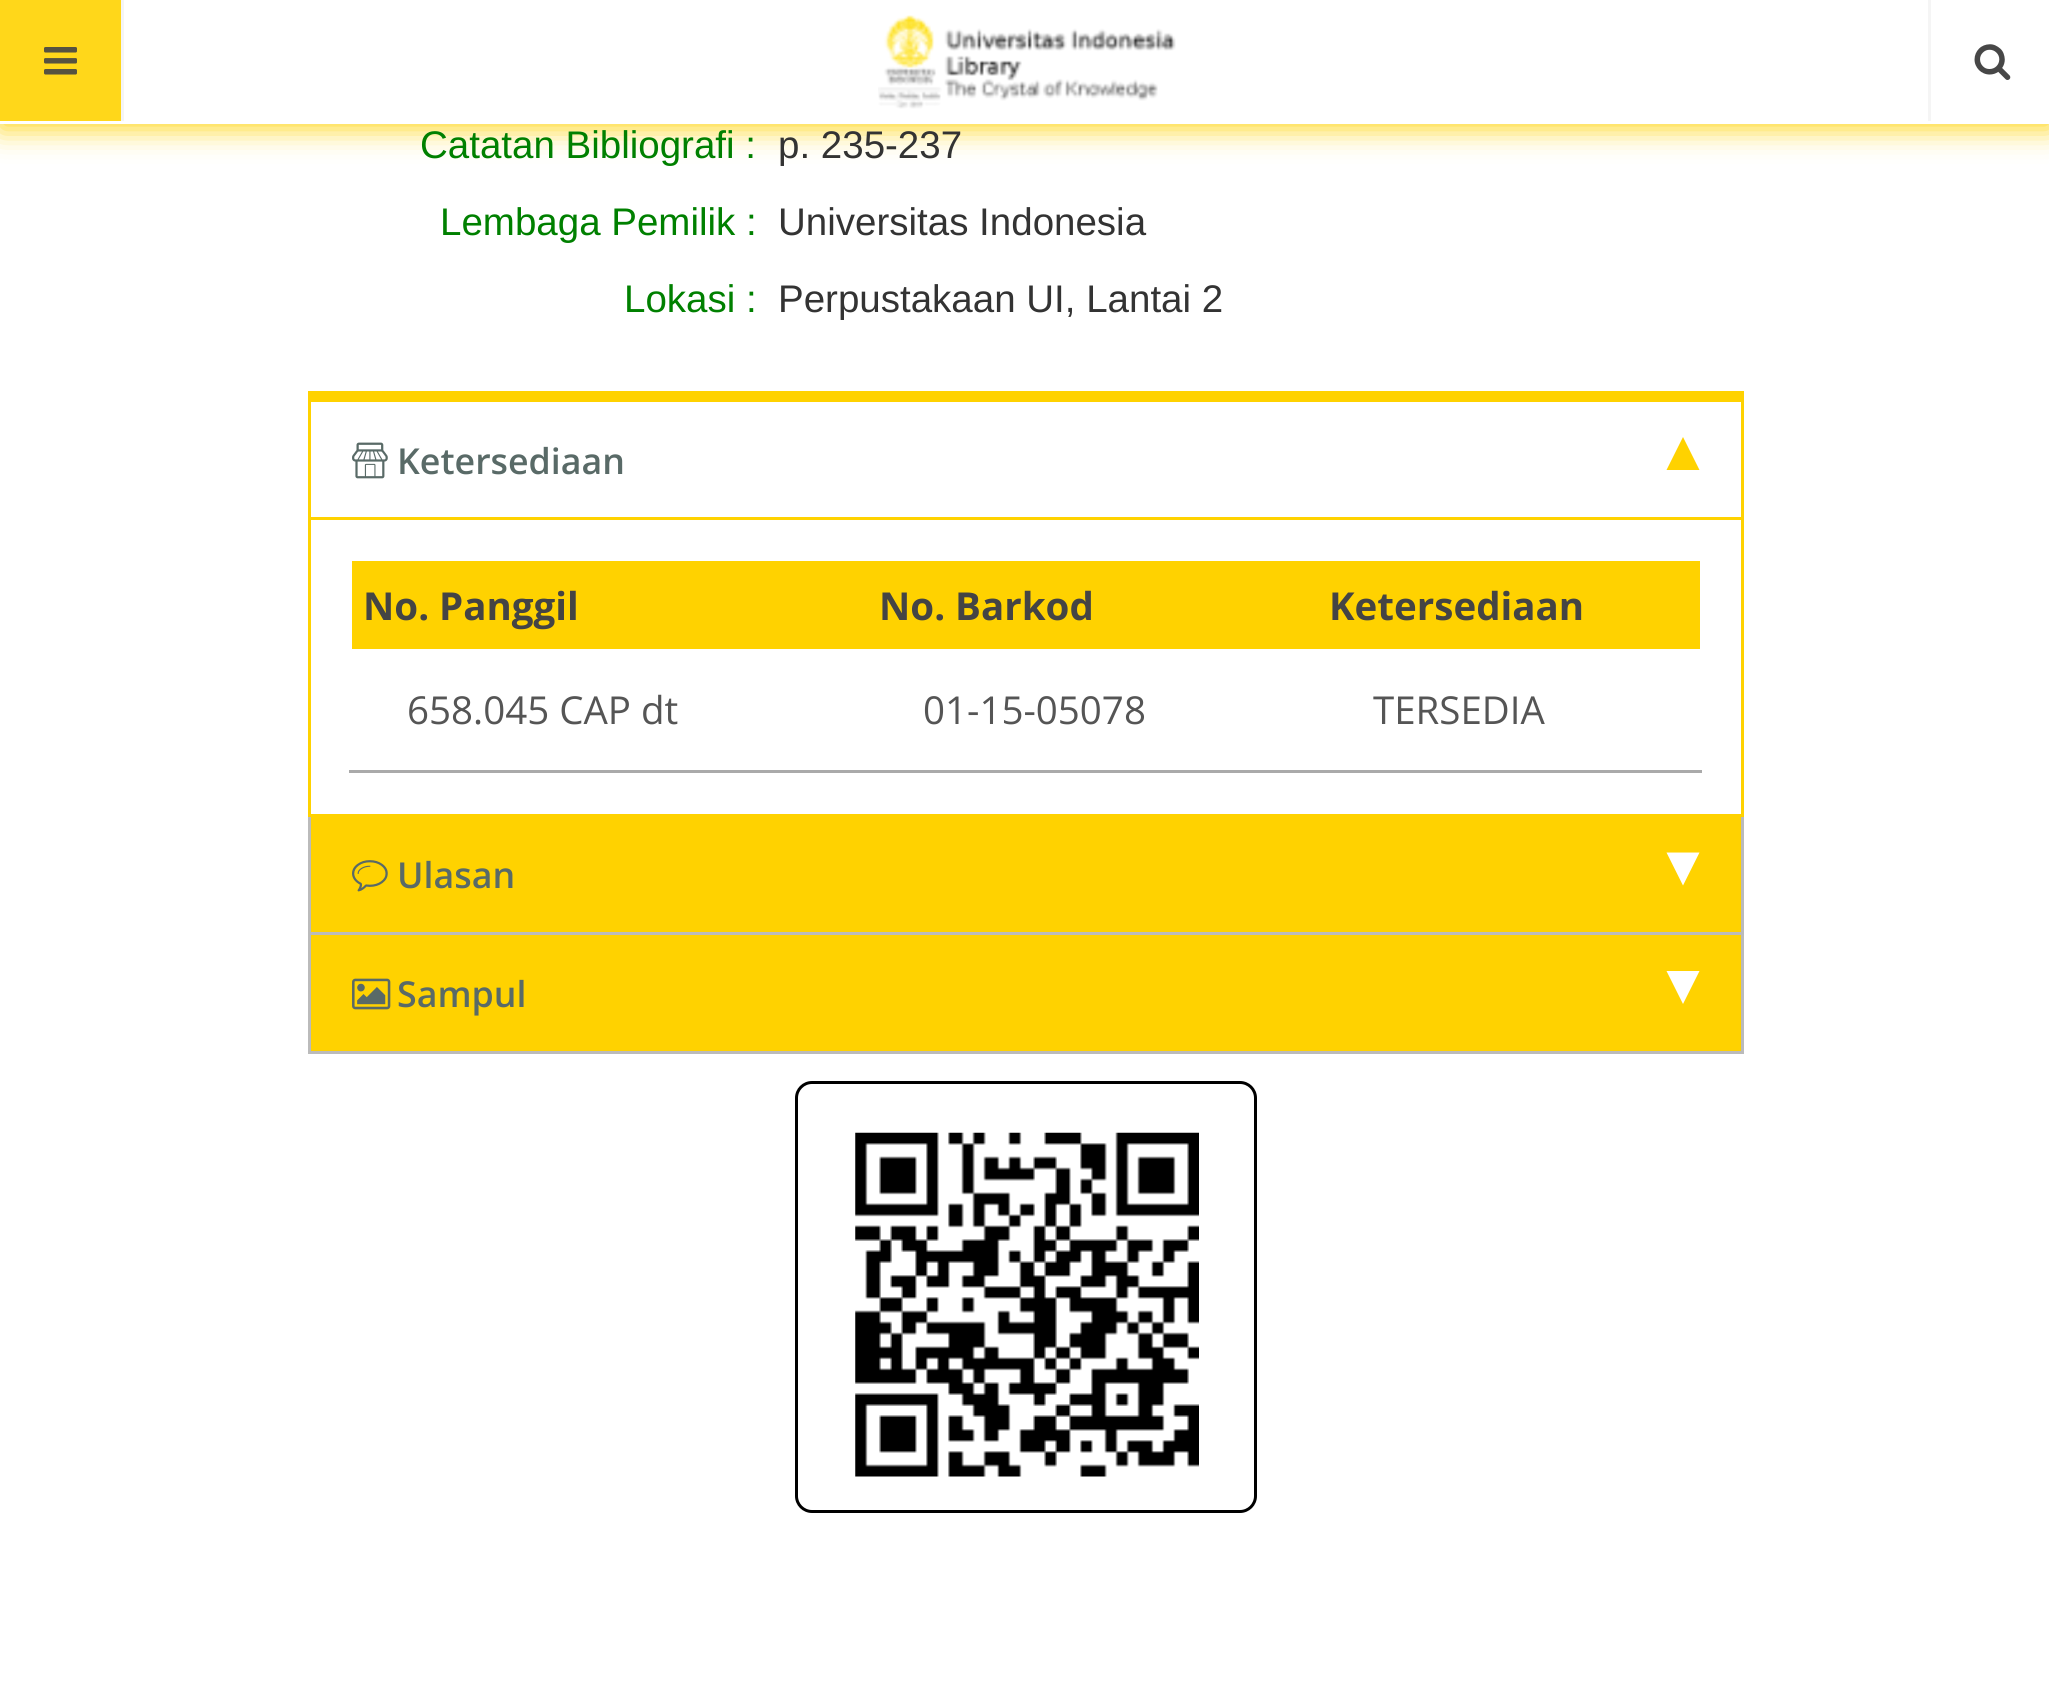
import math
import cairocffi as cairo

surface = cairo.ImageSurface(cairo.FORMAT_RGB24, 2049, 1702)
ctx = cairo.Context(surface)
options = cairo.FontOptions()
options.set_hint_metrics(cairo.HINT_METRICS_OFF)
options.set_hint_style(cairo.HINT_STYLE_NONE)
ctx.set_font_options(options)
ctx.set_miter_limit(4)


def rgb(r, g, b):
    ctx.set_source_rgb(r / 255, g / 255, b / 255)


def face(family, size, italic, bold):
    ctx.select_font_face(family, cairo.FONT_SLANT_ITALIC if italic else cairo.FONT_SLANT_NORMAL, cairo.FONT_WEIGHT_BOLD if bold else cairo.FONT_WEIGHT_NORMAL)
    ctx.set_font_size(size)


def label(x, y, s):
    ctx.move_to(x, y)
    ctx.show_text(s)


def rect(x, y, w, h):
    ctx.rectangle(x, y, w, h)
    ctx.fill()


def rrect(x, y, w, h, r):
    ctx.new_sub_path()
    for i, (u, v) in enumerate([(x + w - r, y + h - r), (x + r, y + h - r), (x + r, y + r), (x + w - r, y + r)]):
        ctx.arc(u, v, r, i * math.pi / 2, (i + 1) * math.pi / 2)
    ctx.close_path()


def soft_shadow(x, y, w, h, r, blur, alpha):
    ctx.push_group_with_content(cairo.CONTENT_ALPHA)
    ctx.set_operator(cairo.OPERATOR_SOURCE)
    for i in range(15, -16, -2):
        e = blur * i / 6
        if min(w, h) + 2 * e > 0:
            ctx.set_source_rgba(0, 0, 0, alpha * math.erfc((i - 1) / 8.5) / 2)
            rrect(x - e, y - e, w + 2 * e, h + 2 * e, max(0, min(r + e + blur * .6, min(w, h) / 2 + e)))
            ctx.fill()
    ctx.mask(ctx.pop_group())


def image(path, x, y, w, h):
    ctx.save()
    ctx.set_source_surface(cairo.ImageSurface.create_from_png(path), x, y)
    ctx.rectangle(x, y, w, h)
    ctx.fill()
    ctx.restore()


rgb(255, 255, 255)
ctx.paint()
ctx.save()
ctx.set_fill_rule(cairo.FILL_RULE_EVEN_ODD)
ctx.new_path()
ctx.move_to(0, 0)
ctx.line_to(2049, 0)
ctx.line_to(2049, 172)
ctx.line_to(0, 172)
ctx.close_path()
ctx.move_to(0, 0)
ctx.line_to(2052, 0)
ctx.line_to(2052, 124)
ctx.line_to(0, 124)
ctx.close_path()
ctx.clip()
rgb(255, 210, 0)
soft_shadow(0, 6, 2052, 123, 0, 14, 0.9)
ctx.restore()
ctx.set_source_rgba(1, 1, 1, 0.9)
rect(0, 123, 2049, 1)
rgb(255, 215, 26)
rect(0, 0, 121, 121)
rgb(245, 245, 245)
rect(121, 0, 3, 121)
image('image0.png', 44, 47, 33, 28)
image('image1.png', 878, 15, 298, 94)
rect(1928, 0, 3, 121)
image('image2.png', 1974, 44, 37, 36)
face('Liberation Sans', 38.5, 0, 0)
rgb(0, 128, 0)
label(420, 158, 'Catatan Bibliografi :')
rgb(51, 51, 51)
label(778, 158, 'p. 235-237')
rgb(0, 128, 0)
label(440, 235, 'Lembaga Pemilik :')
rgb(51, 51, 51)
label(778, 235, 'Universitas Indonesia')
rgb(0, 128, 0)
label(624, 312, 'Lokasi :')
rgb(51, 51, 51)
label(778, 312, 'Perpustakaan UI, Lantai 2')
rgb(255, 210, 0)
rect(311, 391, 1430, 11)
rect(1741, 391, 3, 126)
rect(308, 391, 3, 126)
image('image3.png', 352, 442, 36, 37)
face('Open Sans SemiBold', 35.75, 0, 0)
rgb(89, 106, 103)
label(397, 474, 'Ketersediaan')
rgb(255, 210, 0)
ctx.new_path()
ctx.move_to(1699.5, 470)
ctx.line_to(1666.5, 470)
ctx.line_to(1683, 437)
ctx.close_path()
ctx.fill()
ctx.rectangle(309.5, 518.5, 1433, 297)
ctx.set_line_width(3)
ctx.stroke()
rect(352, 561, 1348, 88)
face('Open Sans', 38.5, 0, 1)
rgb(68, 68, 68)
label(363, 620, 'No. Panggil')
label(879, 620, 'No. Barkod')
label(1329, 620, 'Ketersediaan')
rgb(170, 170, 170)
rect(349, 770, 1353, 3)
face('Open Sans', 38.5, 0, 0)
rgb(85, 85, 85)
label(407, 724, '658.045 CAP dt')
label(923, 724, '01-15-05078')
label(1373, 724, 'TERSEDIA')
rgb(255, 210, 0)
rect(311, 817, 1430, 115)
rgb(187, 187, 187)
rect(1741, 817, 3, 236)
rect(308, 932, 1436, 3)
rect(308, 817, 3, 118)
image('image4.png', 352, 860, 36, 32)
face('Open Sans SemiBold', 35.75, 0, 0)
rgb(89, 106, 103)
label(397, 888, 'Ulasan')
rgb(255, 255, 255)
ctx.new_path()
ctx.move_to(1666.5, 852.5)
ctx.line_to(1699.5, 852.5)
ctx.line_to(1683, 885.5)
ctx.close_path()
ctx.fill()
rgb(255, 210, 0)
rect(311, 935, 1430, 116)
rgb(187, 187, 187)
rect(308, 1051, 1436, 3)
rect(308, 935, 3, 118)
image('image5.png', 352, 978, 39, 32)
rgb(89, 106, 103)
label(397, 1007, 'Sampul')
rgb(255, 255, 255)
ctx.new_path()
ctx.move_to(1666.5, 971)
ctx.line_to(1699.5, 971)
ctx.line_to(1683, 1004)
ctx.close_path()
ctx.fill()
rrect(796.5, 1082.5, 459, 429, 15.5)
rgb(0, 0, 0)
ctx.stroke()
image('image6.png', 855, 1132, 344, 345)
surface.write_to_png('render.png')
